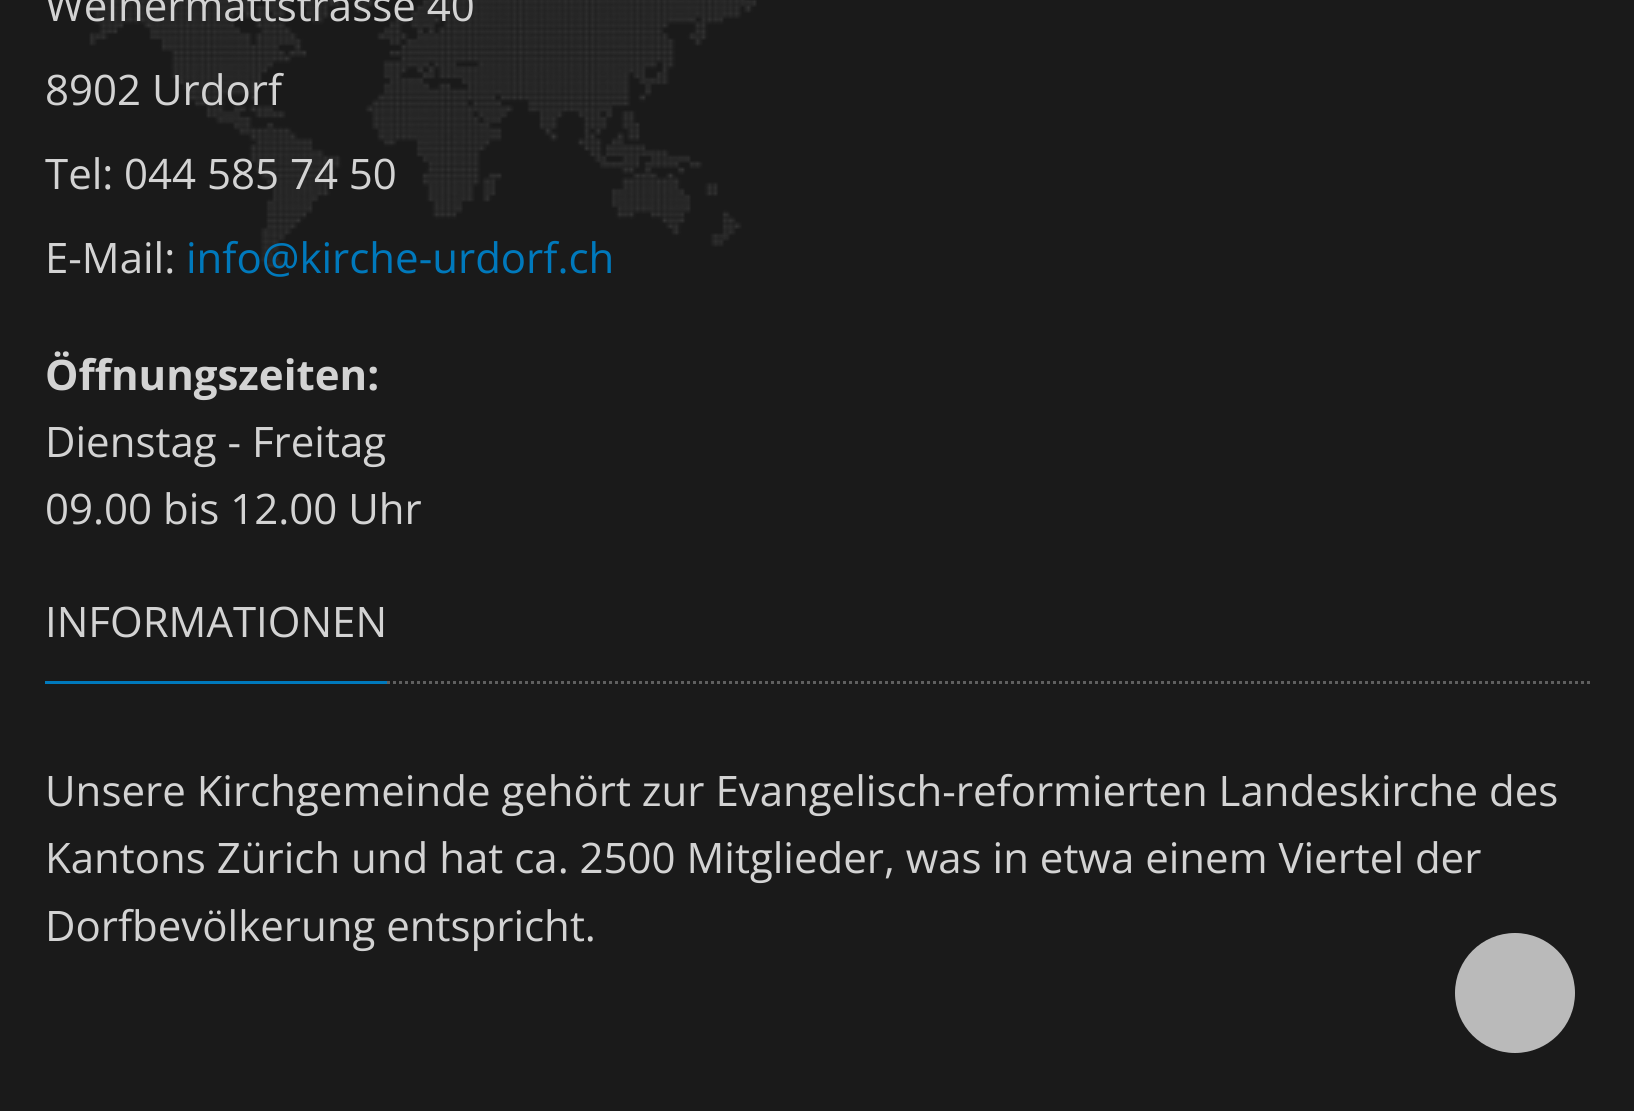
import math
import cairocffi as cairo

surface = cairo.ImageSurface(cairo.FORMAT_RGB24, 1634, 1111)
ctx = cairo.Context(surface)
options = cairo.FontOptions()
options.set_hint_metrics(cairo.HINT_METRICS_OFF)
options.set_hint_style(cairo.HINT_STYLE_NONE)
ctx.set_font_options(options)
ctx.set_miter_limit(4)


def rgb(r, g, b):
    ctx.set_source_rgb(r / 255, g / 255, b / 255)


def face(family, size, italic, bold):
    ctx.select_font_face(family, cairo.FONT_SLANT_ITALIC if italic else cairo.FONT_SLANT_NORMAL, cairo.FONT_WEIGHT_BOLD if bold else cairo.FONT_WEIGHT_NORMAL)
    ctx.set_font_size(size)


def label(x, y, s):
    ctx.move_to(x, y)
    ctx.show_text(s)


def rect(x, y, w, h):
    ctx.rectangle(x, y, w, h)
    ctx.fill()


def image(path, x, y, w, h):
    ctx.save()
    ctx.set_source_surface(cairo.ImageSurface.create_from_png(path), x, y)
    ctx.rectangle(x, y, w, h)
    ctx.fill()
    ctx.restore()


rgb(26, 26, 26)
ctx.paint()
image('image0.png', 89, 0, 668, 268)
face('Open Sans', 42, 0, 0)
rgb(211, 211, 211)
label(45, 21, 'Weihermattstrasse 40')
label(45, 105, '8902 Urdorf')
label(45, 189, 'Tel:')
label(124, 189, '044 585 74 50')
label(45, 273, 'E-Mail:')
rgb(0, 121, 188)
label(186, 273, 'info@kirche-urdorf.ch')
face('Open Sans', 42, 0, 1)
rgb(211, 211, 211)
label(45, 390, 'Öffnungszeiten:')
face('Open Sans', 42, 0, 0)
label(45, 457, 'Dienstag - Freitag')
label(45, 524, '09.00 bis 12.00 Uhr')
ctx.new_path()
ctx.move_to(45, 682.5)
ctx.line_to(1590, 682.5)
rgb(95, 95, 95)
ctx.set_line_width(3)
ctx.set_dash([3, 3])
ctx.stroke()
rgb(0, 121, 188)
rect(45, 681, 342, 3)
rgb(211, 211, 211)
label(45, 637, 'INFORMATIONEN')
label(45, 806, 'Unsere Kirchgemeinde gehört zur Evangelisch-reformierten Landeskirche des')
label(45, 873, 'Kantons Zürich und hat ca. 2500 Mitglieder, was in etwa einem Viertel der')
label(45, 941, 'Dorfbevölkerung entspricht.')
rgb(186, 186, 186)
ctx.new_path()
ctx.arc(1515, 993, 60, 0, 2 * math.pi)
ctx.fill()
surface.write_to_png('render.png')
